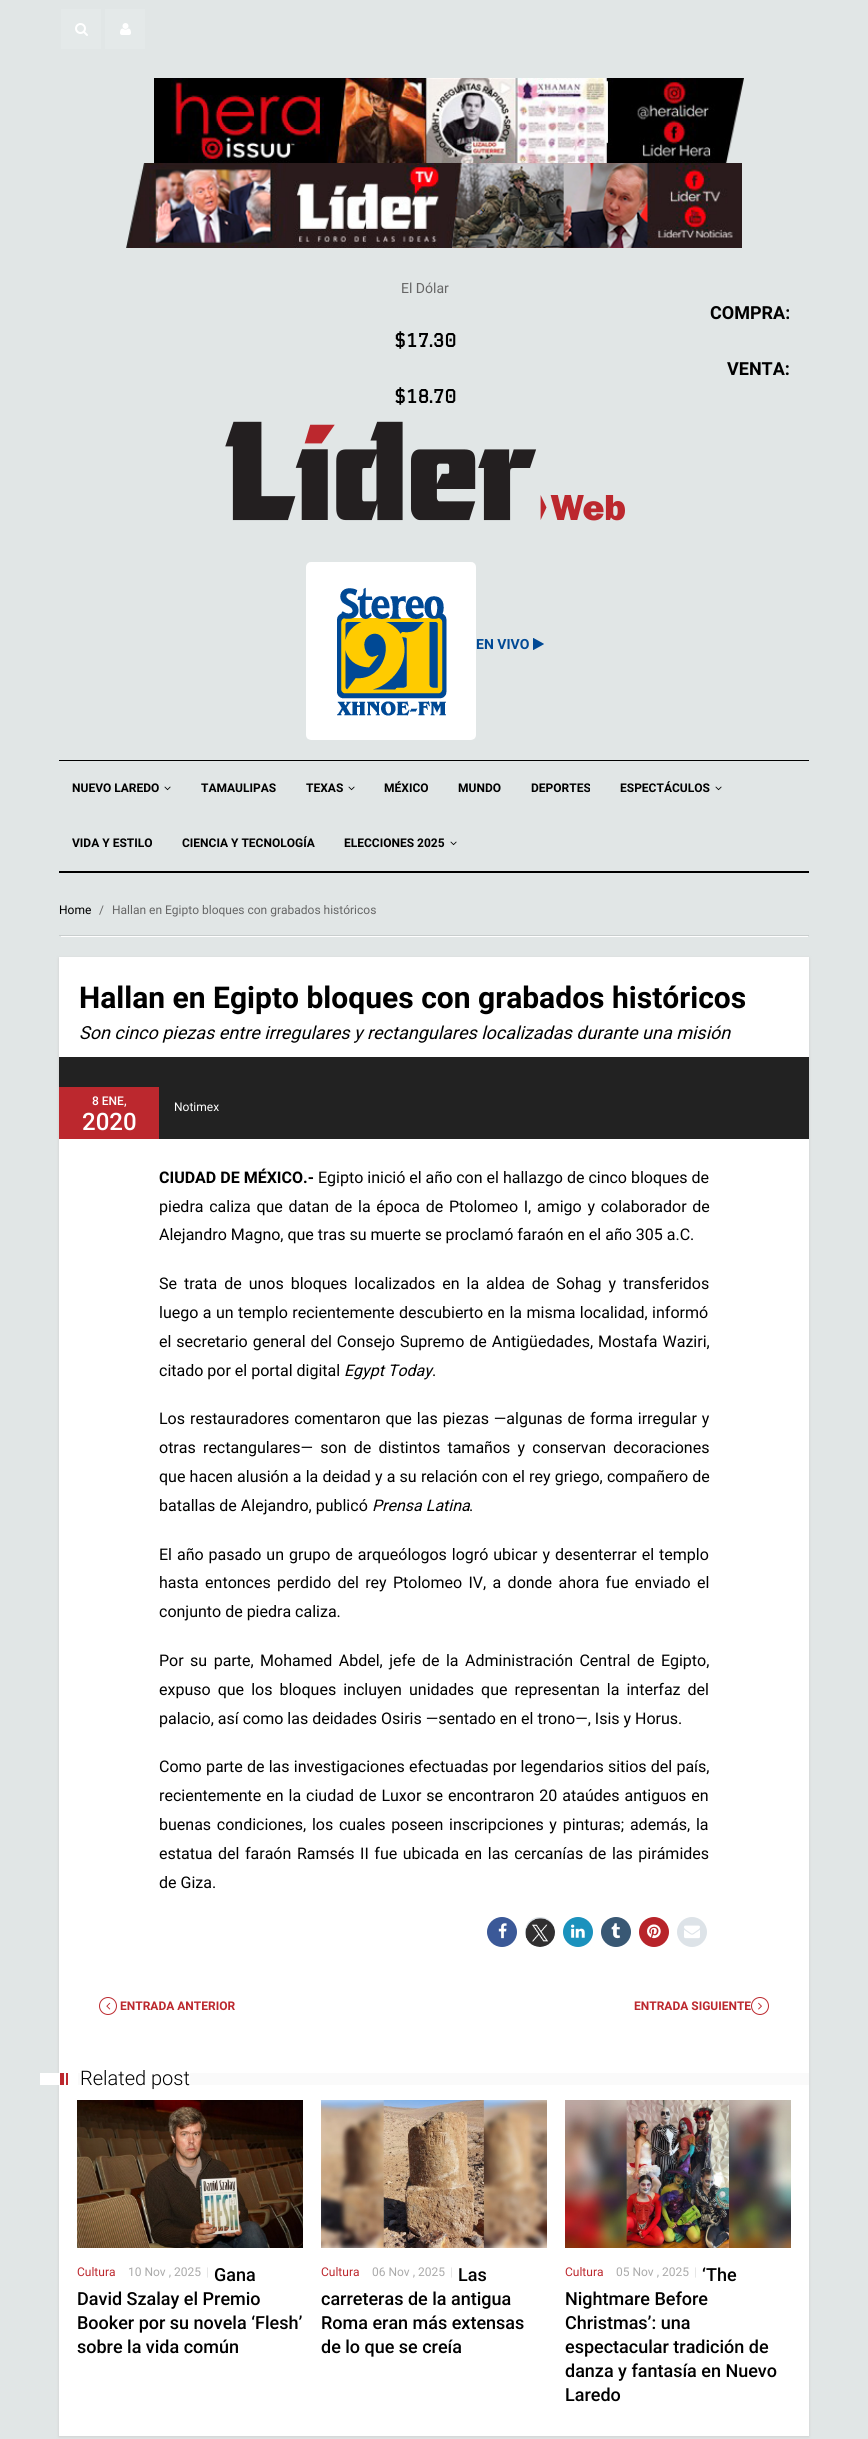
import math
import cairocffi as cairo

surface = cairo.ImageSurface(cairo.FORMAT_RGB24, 868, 2439)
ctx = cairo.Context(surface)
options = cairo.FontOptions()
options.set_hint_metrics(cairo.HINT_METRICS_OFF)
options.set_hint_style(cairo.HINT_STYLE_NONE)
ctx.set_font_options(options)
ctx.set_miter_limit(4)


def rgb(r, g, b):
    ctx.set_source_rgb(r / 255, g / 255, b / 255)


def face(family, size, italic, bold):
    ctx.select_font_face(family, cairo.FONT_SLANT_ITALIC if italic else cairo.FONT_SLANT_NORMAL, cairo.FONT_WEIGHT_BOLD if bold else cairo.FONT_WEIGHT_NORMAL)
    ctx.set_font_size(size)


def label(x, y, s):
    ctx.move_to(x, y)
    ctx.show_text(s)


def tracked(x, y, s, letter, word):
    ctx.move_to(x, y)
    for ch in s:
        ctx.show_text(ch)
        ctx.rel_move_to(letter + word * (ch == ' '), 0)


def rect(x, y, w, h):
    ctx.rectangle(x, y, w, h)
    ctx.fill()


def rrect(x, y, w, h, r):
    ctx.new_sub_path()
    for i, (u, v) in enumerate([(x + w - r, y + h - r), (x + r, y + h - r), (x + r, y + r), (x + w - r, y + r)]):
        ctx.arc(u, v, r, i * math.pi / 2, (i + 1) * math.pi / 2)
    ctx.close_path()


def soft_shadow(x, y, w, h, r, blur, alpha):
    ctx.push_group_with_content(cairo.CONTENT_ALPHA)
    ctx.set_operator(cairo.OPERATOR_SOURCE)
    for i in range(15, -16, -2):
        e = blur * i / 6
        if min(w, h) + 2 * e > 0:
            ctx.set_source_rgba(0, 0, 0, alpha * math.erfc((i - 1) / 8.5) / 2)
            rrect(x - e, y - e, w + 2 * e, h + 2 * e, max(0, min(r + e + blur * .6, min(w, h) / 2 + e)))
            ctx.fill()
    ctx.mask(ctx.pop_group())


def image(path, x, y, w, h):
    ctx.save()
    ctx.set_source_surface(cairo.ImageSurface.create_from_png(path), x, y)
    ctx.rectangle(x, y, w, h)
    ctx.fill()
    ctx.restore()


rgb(225, 230, 230)
ctx.paint()
rgb(228, 233, 233)
rect(61, 9, 40, 40)
image('image0.png', 75, 23, 13, 13)
rect(105, 9, 40, 40)
image('image1.png', 120, 23, 11, 12)
image('image2.png', 154, 78, 590, 85)
image('image3.png', 126, 163, 616, 85)
face('Roboto', 14, 0, 0)
rgb(102, 102, 102)
label(401, 293, 'El Dólar')
face('Roboto', 18, 0, 1)
rgb(0, 0, 0)
label(710, 319, 'COMPRA:')
face('Graduate', 18, 0, 1)
label(394, 347, '$17.30')
face('Roboto', 18, 0, 1)
label(727, 375, 'VENTA:')
face('Graduate', 18, 0, 1)
label(394, 403, '$18.70')
image('image4.png', 225, 421, 400, 100)
image('image5.png', 306, 562, 170, 178)
face('Roboto', 14, 0, 1)
rgb(0, 73, 149)
label(476, 649, 'EN VIVO')
image('image6.png', 533, 638, 11, 12)
rgb(0, 0, 0)
rect(59, 760, 750, 1)
rect(59, 871, 750, 2)
face('Roboto', 12, 0, 1)
label(72, 792, 'NUEVO LAREDO')
image('image7.png', 164, 786, 7, 5)
label(201, 792, 'TAMAULIPAS')
label(306, 792, 'TEXAS')
image('image7.png', 348, 786, 7, 5)
label(384, 792, 'MÉXICO')
label(458, 792, 'MUNDO')
label(531, 792, 'DEPORTES')
label(620, 792, 'ESPECTÁCULOS')
image('image7.png', 715, 786, 7, 5)
label(72, 847, 'VIDA Y ESTILO')
label(182, 847, 'CIENCIA Y TECNOLOGÍA')
label(344, 847, 'ELECCIONES 2025')
image('image7.png', 450, 841, 7, 5)
rgb(255, 255, 255)
rect(61, 936, 747, 1)
rgb(201, 206, 206)
rect(59, 935, 750, 1)
face('Roboto', 12, 0, 0)
rgb(0, 0, 0)
label(59, 914, 'Home')
rgb(102, 102, 102)
label(99, 914, '/')
label(112, 914, 'Hallan en Egipto bloques con grabados históricos')
rgb(208, 208, 208)
soft_shadow(59, 958, 750, 1479, 0, 1.5, 1)
rgb(255, 255, 255)
rect(59, 957, 750, 1479)
face('Roboto', 30, 0, 1)
rgb(0, 0, 0)
label(79, 1008, 'Hallan en Egipto bloques con grabados históricos')
face('Roboto', 18, 1, 0)
label(79, 1039, 'Son cinco piezas entre irregulares y rectangulares localizadas durante una misión')
rgb(34, 34, 34)
rect(59, 1057, 750, 30)
rect(159, 1087, 650, 52)
rgb(188, 40, 46)
rect(59, 1087, 100, 52)
face('Roboto Medium', 12, 0, 0)
rgb(255, 255, 255)
label(92, 1105, '8 ENE,')
face('Roboto Medium', 24, 0, 0)
label(82, 1130, '2020')
face('Roboto', 12, 0, 0)
label(174, 1111, 'Notimex')
face('Roboto', 16, 0, 1)
rgb(0, 0, 0)
label(159, 1183, 'CIUDAD DE MÉXICO.-')
face('Roboto', 16, 0, 0)
label(318, 1183, 'Egipto inició el año con el hallazgo de cinco bloques de')
tracked(159, 1212, 'piedra caliza que datan de la época de Ptolomeo I, amigo y colaborador de', 0, 1.75)
label(159, 1240, 'Alejandro Magno, que tras su muerte se proclamó faraón en el año 305 a.C.')
tracked(159, 1289, 'Se trata de unos bloques localizados en la aldea de Sohag y transferidos', 0, 3)
tracked(159, 1318, 'luego a un templo recientemente descubierto en la misma localidad, informó', 0, 0.5)
tracked(159, 1347, 'el secretario general del Consejo Supremo de Antigüedades, Mostafa Waziri,', 0, 1)
label(159, 1376, 'citado por el portal digital')
face('Roboto', 16, 1, 0)
label(344, 1376, 'Egypt Today')
face('Roboto', 16, 0, 0)
label(432, 1376, '.')
tracked(159, 1424, 'Los restauradores comentaron que las piezas —algunas de forma irregular y', 0, 1)
tracked(159, 1453, 'otras rectangulares— son de distintos tamaños y conservan decoraciones', 0, 3.25)
tracked(159, 1482, 'que hacen alusión a la deidad y a su relación con el rey griego, compañero de', 0, 0.25)
label(159, 1511, 'batallas de Alejandro, publicó')
face('Roboto', 16, 1, 0)
label(372, 1511, 'Prensa Latina')
face('Roboto', 16, 0, 0)
label(469, 1511, '.')
tracked(159, 1560, 'El año pasado un grupo de arqueólogos logró ubicar y desenterrar el templo', 0, 1)
tracked(159, 1588, 'hasta entonces perdido del rey Ptolomeo IV, a donde ahora fue enviado el', 0, 2.4)
label(159, 1617, 'conjunto de piedra caliza.')
tracked(159, 1666, 'Por su parte, Mohamed Abdel, jefe de la Administración Central de Egipto,', 0, 2.5)
tracked(159, 1695, 'expuso que los bloques incluyen unidades que representan la interfaz del', 0, 3.1)
label(159, 1724, 'palacio, así como las deidades Osiris —sentado en el trono—, Isis y Horus.')
tracked(159, 1772, 'Como parte de las investigaciones efectuadas por legendarios sitios del país,', 0, 0.25)
tracked(159, 1801, 'recientemente en la ciudad de Luxor se encontraron 20 ataúdes antiguos en', 0, 1)
tracked(159, 1830, 'buenas condiciones, los cuales poseen inscripciones y pinturas; además, la', 0, 1.75)
tracked(159, 1859, 'estatua del faraón Ramsés II fue ubicada en las cercanías de las pirámides', 0, 1.6)
label(159, 1888, 'de Giza.')
rgb(59, 89, 152)
ctx.new_path()
ctx.arc(502, 1932, 15, 0, 2 * math.pi)
ctx.fill()
image('image8.png', 498, 1923, 9, 16)
rgb(221, 227, 232)
ctx.arc(540, 1932, 15, 0, 2 * math.pi)
ctx.fill()
image('image9.png', 525, 1918, 30, 29)
rgb(27, 146, 189)
ctx.arc(578, 1932, 15, 0, 2 * math.pi)
ctx.fill()
image('image10.png', 571, 1924, 14, 14)
rgb(57, 88, 116)
ctx.arc(616, 1932, 15, 0, 2 * math.pi)
ctx.fill()
image('image11.png', 611, 1923, 10, 16)
rgb(184, 36, 42)
ctx.arc(654, 1932, 15, 0, 2 * math.pi)
ctx.fill()
image('image12.png', 647, 1924, 14, 15)
rgb(221, 227, 232)
ctx.arc(692, 1932, 15, 0, 2 * math.pi)
ctx.fill()
image('image13.png', 684, 1925, 16, 14)
ctx.arc(108, 2006, 8.5, 0, 2 * math.pi)
rgb(188, 40, 46)
ctx.set_line_width(1)
ctx.stroke()
image('image14.png', 106, 2002, 5, 8)
face('Roboto', 12, 0, 1)
label(120, 2010, 'ENTRADA ANTERIOR')
label(634, 2010, 'ENTRADA SIGUIENTE')
ctx.new_path()
ctx.arc(760, 2006, 8.5, 0, 2 * math.pi)
ctx.stroke()
image('image15.png', 758, 2002, 4, 8)
rgb(255, 255, 255)
rect(40, 2073, 19, 12)
rgb(250, 250, 250)
rect(64, 2073, 745, 12)
rgb(255, 255, 255)
rect(80, 2073, 110, 12)
rect(68, 2073, 10, 12)
rgb(188, 40, 46)
rect(60, 2073, 4, 12)
rect(66, 2073, 2, 12)
face('Roboto Light', 20, 0, 0)
rgb(0, 0, 0)
label(80, 2085, 'Related post')
image('image16.png', 77, 2100, 226, 148)
face('Roboto', 12, 0, 0)
rgb(188, 40, 46)
label(77, 2276, 'Cultura')
rgb(170, 170, 170)
label(128, 2276, '10 Nov , 2025')
rgb(226, 226, 226)
label(206, 2276, '|')
face('Roboto Medium', 18, 0, 0)
rgb(0, 0, 0)
label(214, 2281, 'Gana')
label(77, 2305, 'David Szalay el Premio')
label(77, 2329, 'Booker por su novela ‘Flesh’')
label(77, 2353, 'sobre la vida común')
image('image17.png', 321, 2100, 226, 148)
face('Roboto', 12, 0, 0)
rgb(188, 40, 46)
label(321, 2276, 'Cultura')
rgb(170, 170, 170)
label(372, 2276, '06 Nov , 2025')
rgb(226, 226, 226)
label(450, 2276, '|')
face('Roboto Medium', 18, 0, 0)
rgb(0, 0, 0)
label(458, 2281, 'Las')
label(321, 2305, 'carreteras de la antigua')
label(321, 2329, 'Roma eran más extensas')
label(321, 2353, 'de lo que se creía')
image('image18.png', 565, 2100, 226, 148)
face('Roboto', 12, 0, 0)
rgb(188, 40, 46)
label(565, 2276, 'Cultura')
rgb(170, 170, 170)
label(616, 2276, '05 Nov , 2025')
rgb(226, 226, 226)
label(694, 2276, '|')
face('Roboto Medium', 18, 0, 0)
rgb(0, 0, 0)
label(702, 2281, '‘The')
label(565, 2305, 'Nightmare Before')
label(565, 2329, 'Christmas’: una')
label(565, 2353, 'espectacular tradición de')
label(565, 2377, 'danza y fantasía en Nuevo')
label(565, 2401, 'Laredo')
surface.write_to_png('render.png')
